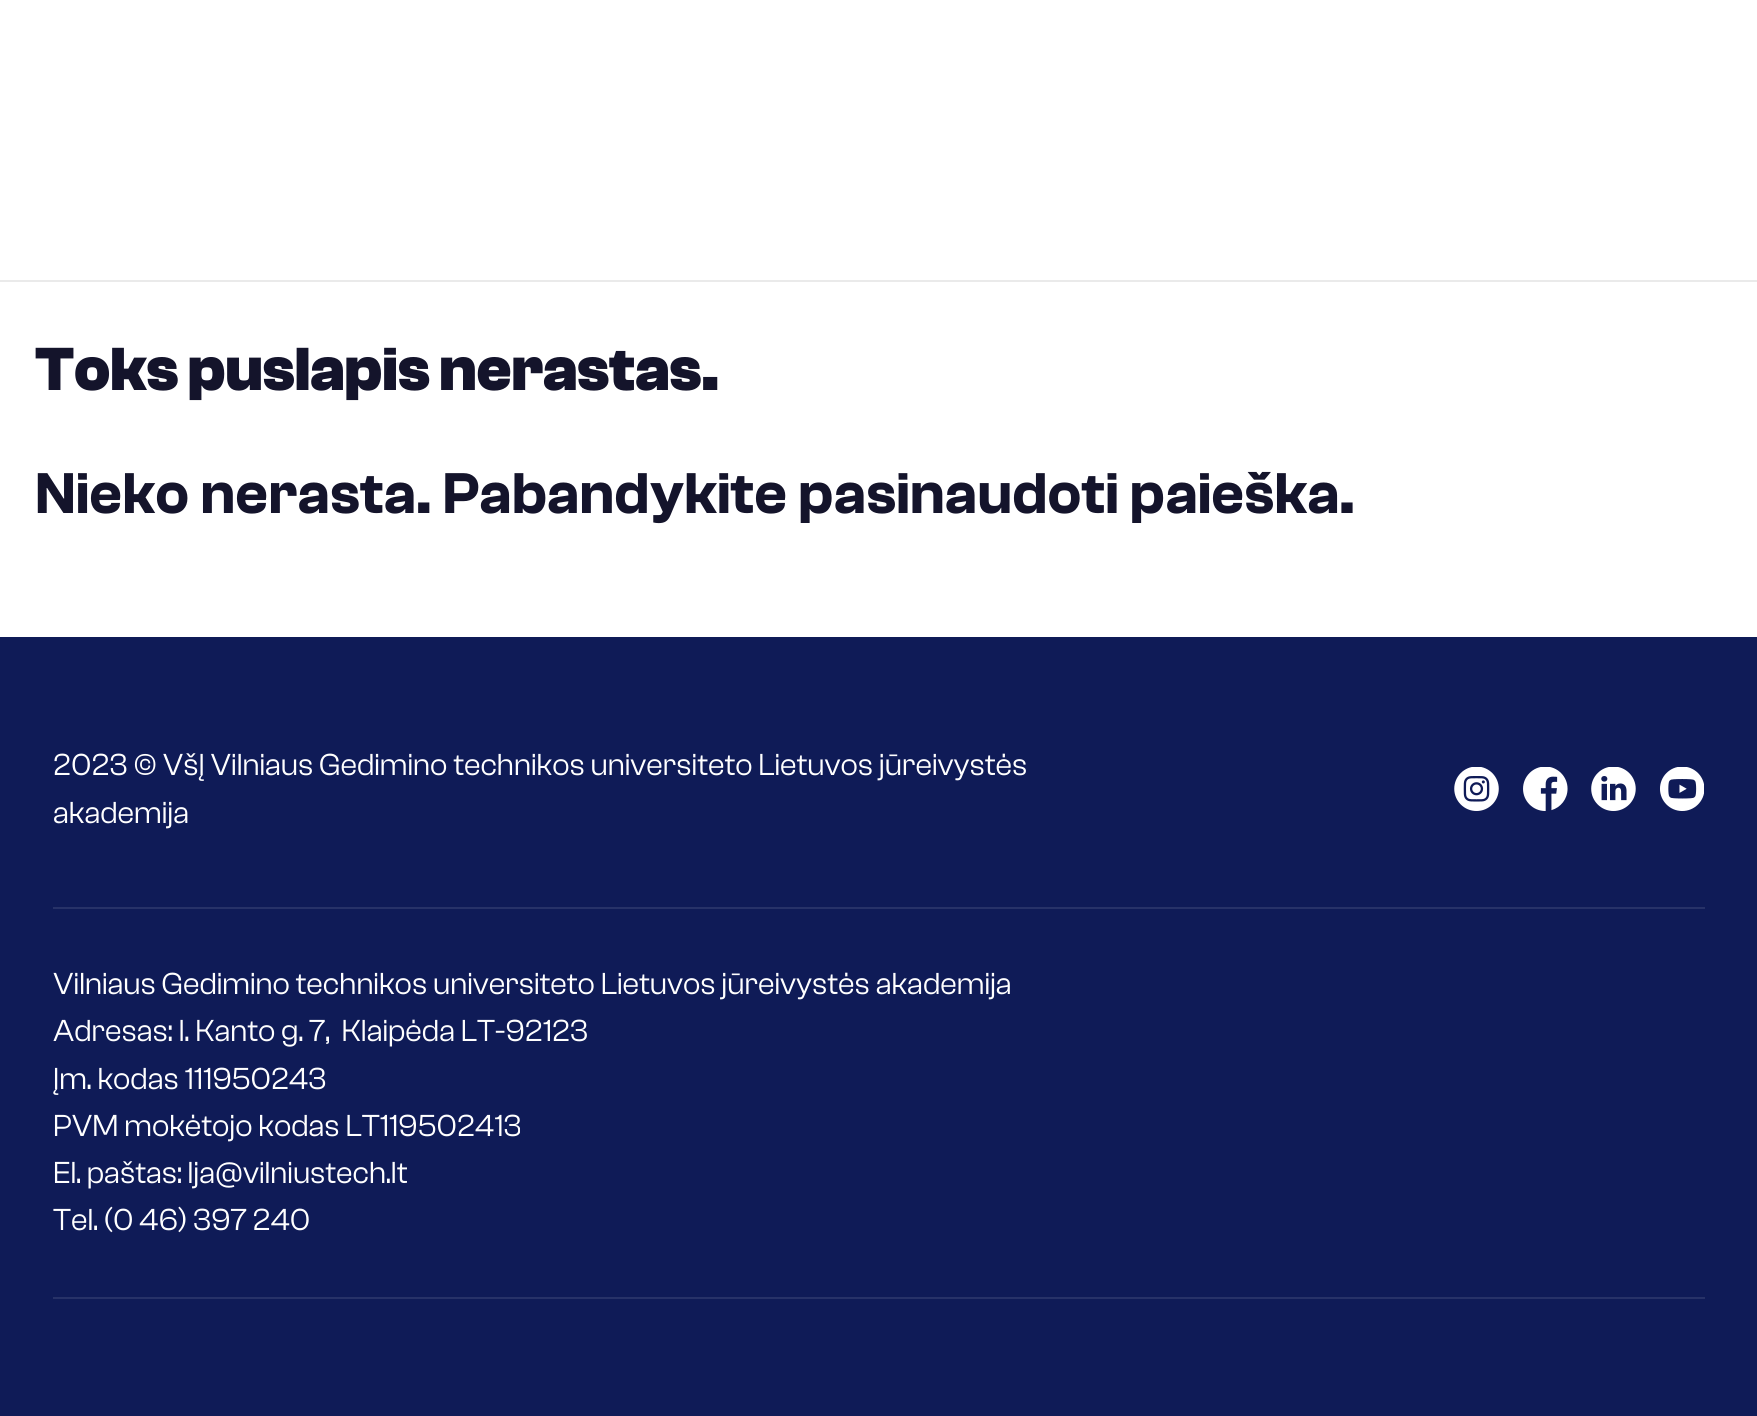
import math
import cairocffi as cairo

surface = cairo.ImageSurface(cairo.FORMAT_RGB24, 1757, 1416)
ctx = cairo.Context(surface)
options = cairo.FontOptions()
options.set_hint_metrics(cairo.HINT_METRICS_OFF)
options.set_hint_style(cairo.HINT_STYLE_NONE)
ctx.set_font_options(options)
ctx.set_miter_limit(4)


def rgb(r, g, b):
    ctx.set_source_rgb(r / 255, g / 255, b / 255)


def face(family, size, italic, bold):
    ctx.select_font_face(family, cairo.FONT_SLANT_ITALIC if italic else cairo.FONT_SLANT_NORMAL, cairo.FONT_WEIGHT_BOLD if bold else cairo.FONT_WEIGHT_NORMAL)
    ctx.set_font_size(size)


def label(x, y, s):
    ctx.move_to(x, y)
    ctx.show_text(s)


def rect(x, y, w, h):
    ctx.rectangle(x, y, w, h)
    ctx.fill()


def image(path, x, y, w, h):
    ctx.save()
    ctx.set_source_surface(cairo.ImageSurface.create_from_png(path), x, y)
    ctx.rectangle(x, y, w, h)
    ctx.fill()
    ctx.restore()


rgb(255, 255, 255)
ctx.paint()
rgb(234, 234, 234)
rect(0, 280, 1757, 2)
face('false', 63, 0, 1)
rgb(20, 20, 43)
label(35, 390, 'Toks puslapis nerastas.')
face('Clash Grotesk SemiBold', 59.5, 0, 0)
label(35, 513, 'Nieko nerasta. Pabandykite pasinaudoti paieška.')
rgb(15, 27, 87)
rect(0, 637, 1757, 779)
face('false', 31.5, 0, 0)
rgb(255, 255, 255)
label(53, 775, '2023 © VšĮ Vilniaus Gedimino technikos universiteto Lietuvos jūreivystės')
label(53, 823, 'akademija')
image('image0.png', 1454, 767, 45, 44)
image('image1.png', 1523, 767, 45, 44)
image('image2.png', 1591, 767, 45, 44)
image('image3.png', 1660, 767, 44, 44)
rgb(39, 50, 104)
rect(53, 907, 1652, 2)
rect(53, 1297, 1652, 2)
rgb(255, 255, 255)
label(53, 994, 'Vilniaus Gedimino technikos universiteto Lietuvos jūreivystės akademija')
label(53, 1041, 'Adresas: I. Kanto g. 7,  Klaipėda LT-92123')
label(53, 1089, 'Įm. kodas 111950243')
label(53, 1136, 'PVM mokėtojo kodas LT119502413')
label(53, 1183, 'El. paštas: lja@vilniustech.lt')
label(53, 1230, 'Tel. (0 46) 397 240')
surface.write_to_png('render.png')
